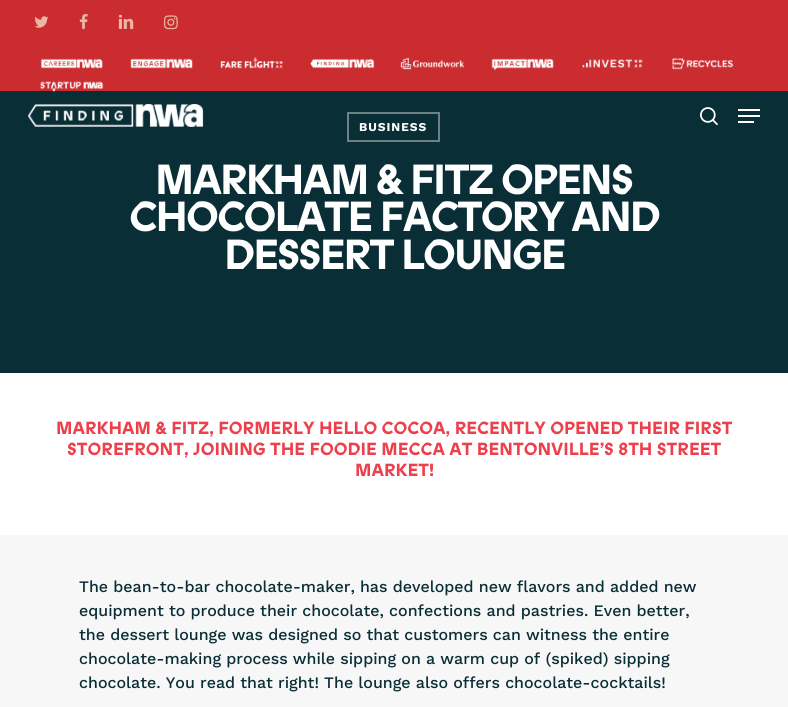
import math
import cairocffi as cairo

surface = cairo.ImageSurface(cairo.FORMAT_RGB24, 788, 707)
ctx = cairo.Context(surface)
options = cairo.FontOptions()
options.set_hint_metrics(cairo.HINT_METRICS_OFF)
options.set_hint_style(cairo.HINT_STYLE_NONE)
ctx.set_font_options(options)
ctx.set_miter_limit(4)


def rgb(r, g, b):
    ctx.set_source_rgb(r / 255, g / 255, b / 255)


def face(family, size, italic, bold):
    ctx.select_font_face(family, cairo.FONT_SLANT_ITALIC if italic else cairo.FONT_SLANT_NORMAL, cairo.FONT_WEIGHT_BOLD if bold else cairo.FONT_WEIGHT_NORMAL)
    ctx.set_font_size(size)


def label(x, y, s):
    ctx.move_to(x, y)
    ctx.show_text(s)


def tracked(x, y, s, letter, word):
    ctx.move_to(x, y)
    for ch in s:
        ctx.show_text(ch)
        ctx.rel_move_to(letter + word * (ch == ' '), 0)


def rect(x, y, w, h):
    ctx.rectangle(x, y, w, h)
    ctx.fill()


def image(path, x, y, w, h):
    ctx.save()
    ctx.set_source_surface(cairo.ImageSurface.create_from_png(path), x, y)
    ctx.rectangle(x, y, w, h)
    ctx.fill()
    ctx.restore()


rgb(247, 247, 247)
ctx.paint()
rgb(203, 44, 48)
rect(0, 0, 788, 91)
image('image0.png', 34, 16, 15, 12)
image('image1.png', 79, 14, 9, 15)
image('image2.png', 118, 14, 16, 15)
image('image3.png', 164, 15, 14, 15)
image('image4.png', 40, 58, 63, 11)
image('image5.png', 130, 58, 63, 11)
image('image6.png', 220, 57, 64, 12)
image('image7.png', 310, 58, 65, 11)
image('image8.png', 400, 57, 65, 13)
image('image9.png', 491, 58, 63, 12)
image('image10.png', 582, 59, 61, 9)
image('image11.png', 671, 58, 63, 12)
rgb(10, 46, 54)
rect(0, 91, 788, 282)
image('image12.png', 40, 81, 64, 11)
image('image13.png', 28, 104, 176, 23)
image('image14.png', 700, 107, 18, 19)
rgb(255, 255, 255)
rect(738, 109, 22, 2)
rect(738, 121, 16, 2)
rect(738, 115, 22, 2)
ctx.rectangle(348, 113, 91, 28)
rgb(108, 130, 134)
ctx.stroke()
face('Work Sans', 12, 0, 1)
rgb(255, 255, 255)
tracked(359, 131, 'BUSINESS', 1, 0)
face('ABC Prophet', 42, 0, 1)
tracked(155, 194, 'MARKHAM & FITZ OPENS', -2, 0)
tracked(129, 231, 'CHOCOLATE FACTORY AND', -2, 0)
tracked(224, 269, 'DESSERT LOUNGE', -2, 0)
rect(0, 373, 788, 162)
face('ABC Prophet', 17.6, 0, 1)
rgb(238, 63, 76)
label(56, 434, 'MARKHAM & FITZ, FORMERLY HELLO COCOA, RECENTLY OPENED THEIR FIRST')
label(67, 455, 'STOREFRONT, JOINING THE FOODIE MECCA AT BENTONVILLE’S 8TH STREET')
label(355, 476, 'MARKET!')
face('Work Sans Medium', 16, 0, 0)
rgb(10, 46, 54)
label(79, 592, 'The bean-to-bar chocolate-maker, has developed new flavors and added new')
label(79, 616, 'equipment to produce their chocolate, confections and pastries. Even better,')
label(79, 640, 'the dessert lounge was designed so that customers can witness the entire')
label(79, 664, 'chocolate-making process while sipping on a warm cup of (spiked) sipping')
label(79, 688, 'chocolate. You read that right! The lounge also offers chocolate-cocktails!')
surface.write_to_png('render.png')
